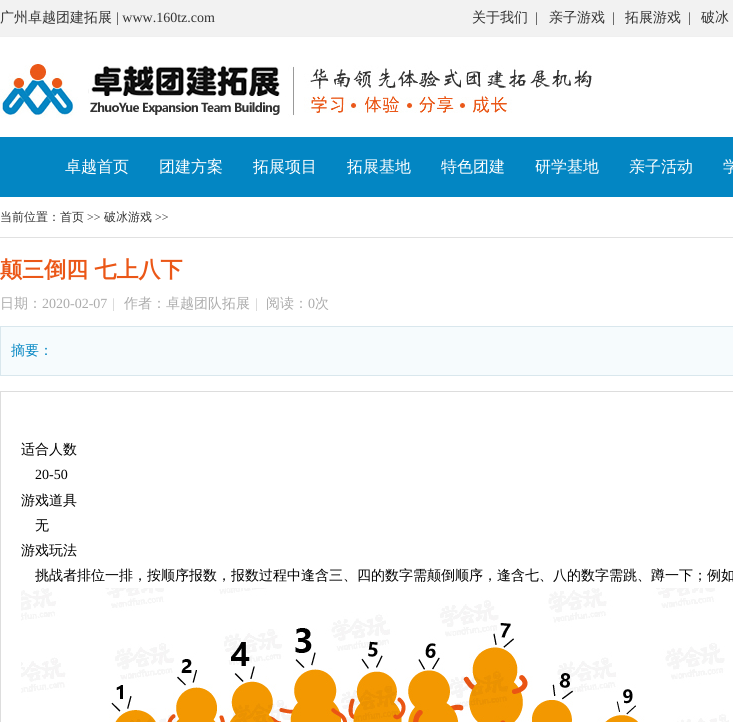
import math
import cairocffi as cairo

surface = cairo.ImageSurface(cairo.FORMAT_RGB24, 733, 722)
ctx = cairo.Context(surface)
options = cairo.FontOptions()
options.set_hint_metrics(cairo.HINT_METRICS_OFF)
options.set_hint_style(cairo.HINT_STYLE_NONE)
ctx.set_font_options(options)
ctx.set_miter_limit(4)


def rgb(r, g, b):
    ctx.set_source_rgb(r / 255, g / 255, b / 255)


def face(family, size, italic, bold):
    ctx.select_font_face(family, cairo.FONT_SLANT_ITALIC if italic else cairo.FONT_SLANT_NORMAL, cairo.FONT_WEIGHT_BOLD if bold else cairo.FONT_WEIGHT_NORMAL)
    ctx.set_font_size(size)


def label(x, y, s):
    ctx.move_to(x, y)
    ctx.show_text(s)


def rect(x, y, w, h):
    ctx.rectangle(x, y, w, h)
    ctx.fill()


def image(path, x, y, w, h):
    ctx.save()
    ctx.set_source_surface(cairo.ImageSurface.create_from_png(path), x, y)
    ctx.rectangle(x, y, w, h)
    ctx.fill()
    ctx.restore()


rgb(255, 255, 255)
ctx.paint()
rgb(242, 242, 242)
rect(0, 0, 733, 36)
rgb(240, 240, 240)
rect(0, 36, 733, 1)
face('WenQuanYi Zen Hei Medium', 14, 0, 0)
rgb(51, 51, 51)
label(0, 22, '广州卓越团建拓展')
face('Liberation Serif', 14, 0, 0)
label(116, 22, '| www.160tz.com')
face('WenQuanYi Zen Hei Medium', 14, 0, 0)
label(472, 22, '关于我们')
face('Liberation Serif', 14, 0, 0)
label(535, 22, '|')
face('WenQuanYi Zen Hei Medium', 14, 0, 0)
label(549, 22, '亲子游戏')
face('Liberation Serif', 14, 0, 0)
label(612, 22, '|')
face('WenQuanYi Zen Hei Medium', 14, 0, 0)
label(625, 22, '拓展游戏')
face('Liberation Serif', 14, 0, 0)
label(688, 22, '|')
face('WenQuanYi Zen Hei Medium', 14, 0, 0)
label(701, 22, '破冰')
image('image0.png', 0, 61, 592, 57)
rgb(3, 134, 195)
rect(0, 137, 733, 60)
face('WenQuanYi Zen Hei Medium', 16, 0, 0)
rgb(255, 255, 255)
label(65, 172, '卓越首页')
label(159, 172, '团建方案')
label(253, 172, '拓展项目')
label(347, 172, '拓展基地')
label(441, 172, '特色团建')
label(535, 172, '研学基地')
label(629, 172, '亲子活动')
label(723, 172, '学')
rgb(225, 225, 225)
rect(0, 237, 733, 1)
face('WenQuanYi Zen Hei Medium', 12, 0, 0)
rgb(51, 51, 51)
label(0, 221, '当前位置：首页')
face('Liberation Serif', 12, 0, 0)
label(87, 221, '>>')
face('WenQuanYi Zen Hei Medium', 12, 0, 0)
label(104, 221, '破冰游戏')
face('Liberation Serif', 12, 0, 0)
label(155, 221, '>>')
face('WenQuanYi Zen Hei', 22, 0, 1)
rgb(235, 87, 23)
label(0, 277, '颠三倒四 七上八下')
face('WenQuanYi Zen Hei Medium', 14, 0, 0)
rgb(172, 172, 172)
label(0, 308, '日期：')
face('Liberation Serif', 14, 0, 0)
label(42, 308, '2020-02-07')
rgb(204, 204, 204)
label(112, 308, '|')
face('WenQuanYi Zen Hei Medium', 14, 0, 0)
rgb(172, 172, 172)
label(124, 308, '作者：卓越团队拓展')
face('Liberation Serif', 14, 0, 0)
rgb(204, 204, 204)
label(255, 308, '|')
face('WenQuanYi Zen Hei Medium', 14, 0, 0)
rgb(172, 172, 172)
label(266, 308, '阅读：')
face('Liberation Serif', 14, 0, 0)
label(308, 308, '0')
face('WenQuanYi Zen Hei Medium', 14, 0, 0)
label(315, 308, '次')
rgb(246, 251, 253)
ctx.rectangle(0.5, 326.5, 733, 49)
ctx.fill_preserve()
rgb(217, 231, 237)
ctx.set_line_width(1)
ctx.stroke()
rgb(3, 134, 195)
label(11, 355, '摘要：')
ctx.rectangle(0.5, 391.5, 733, 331)
rgb(221, 221, 221)
ctx.stroke()
rgb(0, 0, 0)
label(21, 454, '适合人数')
face('Liberation Serif', 14, 0, 0)
label(35, 479, '20-50')
face('WenQuanYi Zen Hei Medium', 14, 0, 0)
label(21, 505, '游戏道具')
label(35, 530, '无')
label(21, 555, '游戏玩法')
label(35, 580, '挑战者排位一排，按顺序报数，报数过程中逢含三、四的数字需颠倒顺序，逢含七、八的数字需跳、蹲一下；例如')
image('image1.png', 21, 588, 708, 134)
surface.write_to_png('render.png')
